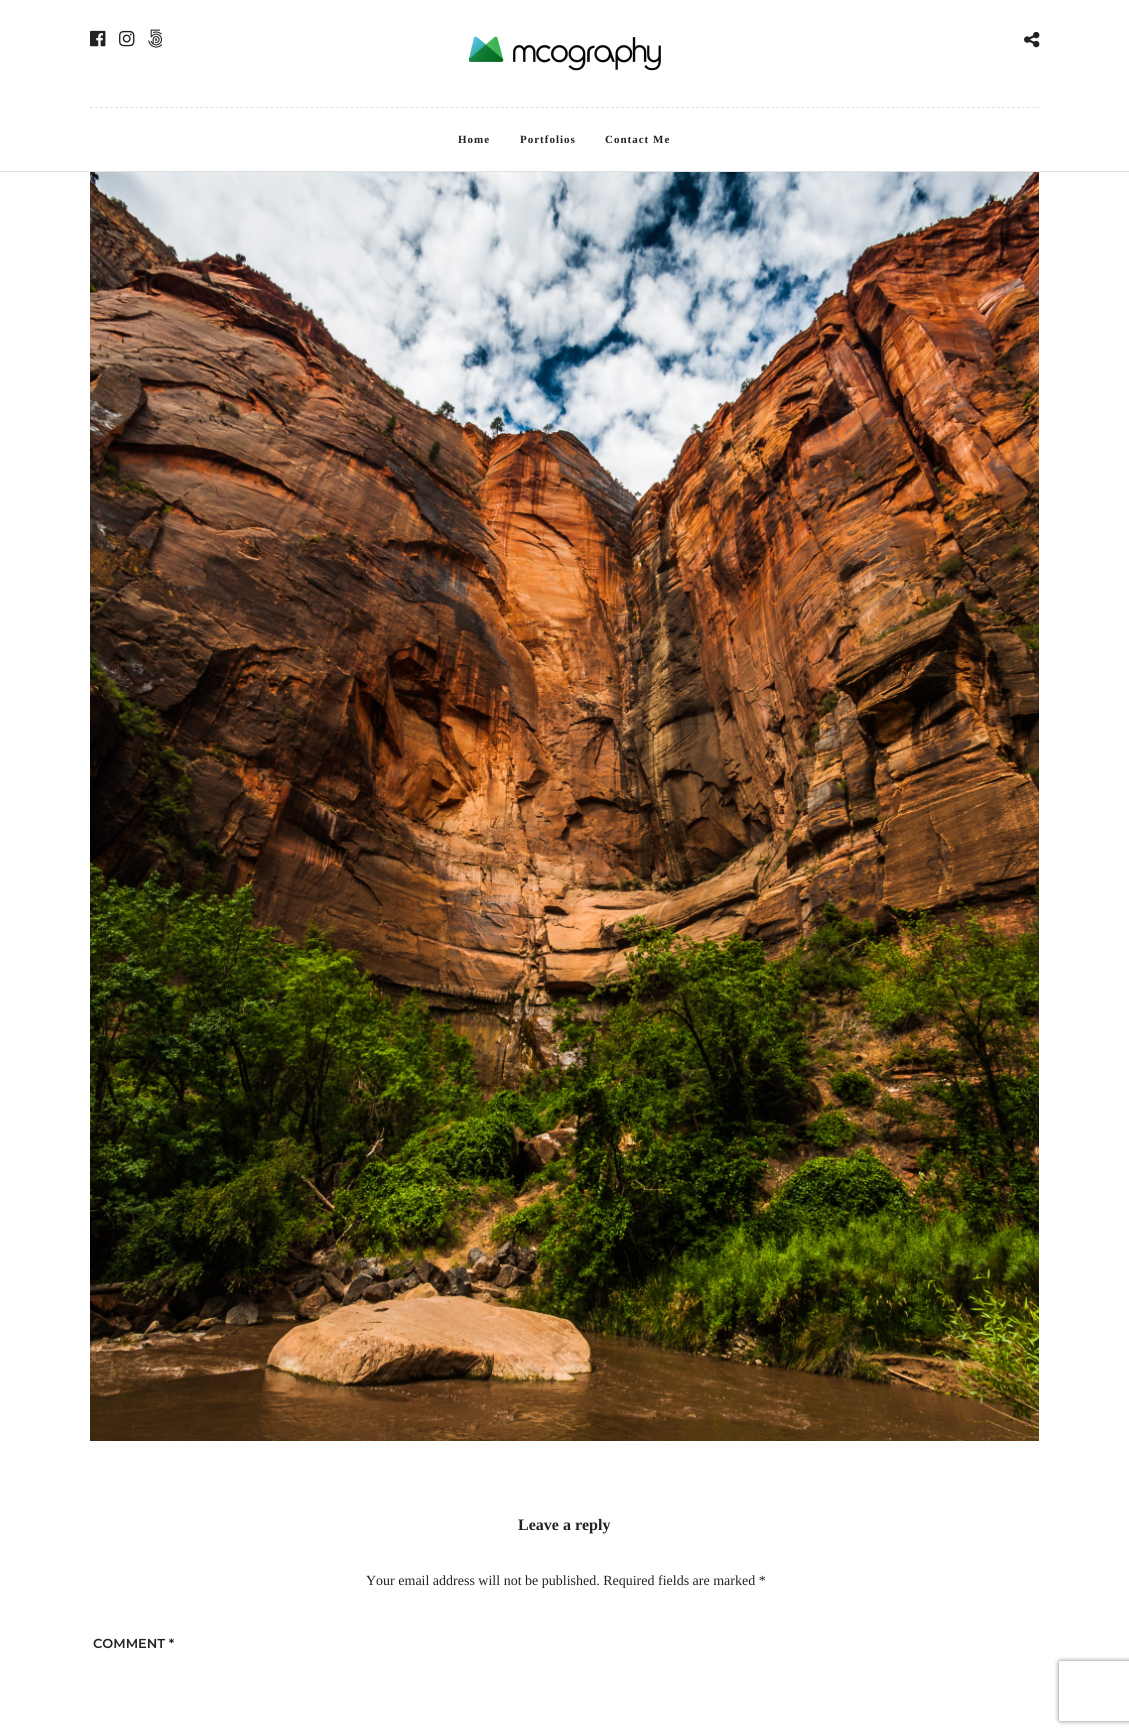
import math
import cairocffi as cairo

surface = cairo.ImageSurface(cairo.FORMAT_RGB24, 1129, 1735)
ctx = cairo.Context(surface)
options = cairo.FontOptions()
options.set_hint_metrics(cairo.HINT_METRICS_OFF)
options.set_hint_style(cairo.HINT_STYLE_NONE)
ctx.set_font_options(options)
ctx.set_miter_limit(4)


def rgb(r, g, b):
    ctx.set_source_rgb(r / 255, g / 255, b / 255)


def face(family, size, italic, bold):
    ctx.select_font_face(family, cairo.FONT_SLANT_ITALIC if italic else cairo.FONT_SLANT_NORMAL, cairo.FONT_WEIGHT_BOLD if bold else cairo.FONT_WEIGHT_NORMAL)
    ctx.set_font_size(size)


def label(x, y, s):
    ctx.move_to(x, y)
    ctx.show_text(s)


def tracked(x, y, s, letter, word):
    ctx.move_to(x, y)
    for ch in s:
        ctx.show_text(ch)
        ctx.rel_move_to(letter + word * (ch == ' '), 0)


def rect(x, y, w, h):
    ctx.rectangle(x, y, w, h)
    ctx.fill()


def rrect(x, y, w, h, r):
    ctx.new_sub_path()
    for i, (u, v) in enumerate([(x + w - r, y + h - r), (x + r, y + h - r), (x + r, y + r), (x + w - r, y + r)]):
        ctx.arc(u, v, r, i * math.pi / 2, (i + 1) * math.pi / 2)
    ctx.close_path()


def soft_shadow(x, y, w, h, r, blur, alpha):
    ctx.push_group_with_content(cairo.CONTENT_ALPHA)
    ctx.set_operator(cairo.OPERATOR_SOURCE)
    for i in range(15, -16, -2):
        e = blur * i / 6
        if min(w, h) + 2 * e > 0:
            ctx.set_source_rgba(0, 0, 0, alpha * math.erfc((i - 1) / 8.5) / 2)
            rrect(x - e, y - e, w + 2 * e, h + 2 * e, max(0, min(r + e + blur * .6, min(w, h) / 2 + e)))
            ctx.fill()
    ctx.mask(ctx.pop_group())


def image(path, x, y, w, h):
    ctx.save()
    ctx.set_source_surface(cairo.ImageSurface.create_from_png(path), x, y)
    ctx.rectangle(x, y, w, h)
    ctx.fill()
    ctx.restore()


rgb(255, 255, 255)
ctx.paint()
rgb(225, 225, 225)
rect(0, 171, 1129, 1)
image('image0.png', 90, 30, 16, 17)
image('image1.png', 119, 30, 16, 17)
image('image2.png', 148, 29, 15, 19)
image('image3.png', 468, 36, 193, 35)
image('image4.png', 1024, 31, 16, 17)
ctx.new_path()
ctx.move_to(90, 107.5)
ctx.line_to(1039, 107.5)
ctx.set_line_width(1)
ctx.set_dash([3, 2.01])
ctx.stroke()
face('Liberation Serif', 11, 0, 1)
rgb(34, 34, 34)
tracked(458, 143, 'Home', 1, 0)
tracked(520, 143, 'Portfolios', 1, 0)
tracked(605, 143, 'Contact Me', 1, 0)
image('image5.png', 90, 172, 949, 1269)
face('Liberation Serif', 16, 0, 1)
label(518, 1530, 'Leave a reply')
face('Liberation Serif', 14, 0, 0)
label(366, 1585, 'Your email address will not be published. Required fields are marked *')
face('Montserrat SemiBold', 13, 0, 0)
label(93, 1648, 'COMMENT *')
ctx.save()
ctx.set_fill_rule(cairo.FILL_RULE_EVEN_ODD)
ctx.new_path()
ctx.move_to(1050, 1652)
ctx.line_to(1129, 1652)
ctx.line_to(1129, 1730)
ctx.line_to(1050, 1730)
ctx.close_path()
ctx.move_to(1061, 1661)
ctx.line_to(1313, 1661)
ctx.curve_to(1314, 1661, 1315, 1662, 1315, 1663)
ctx.line_to(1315, 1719)
ctx.curve_to(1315, 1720, 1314, 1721, 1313, 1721)
ctx.line_to(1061, 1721)
ctx.curve_to(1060, 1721, 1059, 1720, 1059, 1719)
ctx.line_to(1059, 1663)
ctx.curve_to(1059, 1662, 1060, 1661, 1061, 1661)
ctx.close_path()
ctx.clip()
rgb(128, 128, 128)
soft_shadow(1059, 1661, 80, 60, 2, 2.5, 1)
ctx.restore()
surface.write_to_png('render.png')
